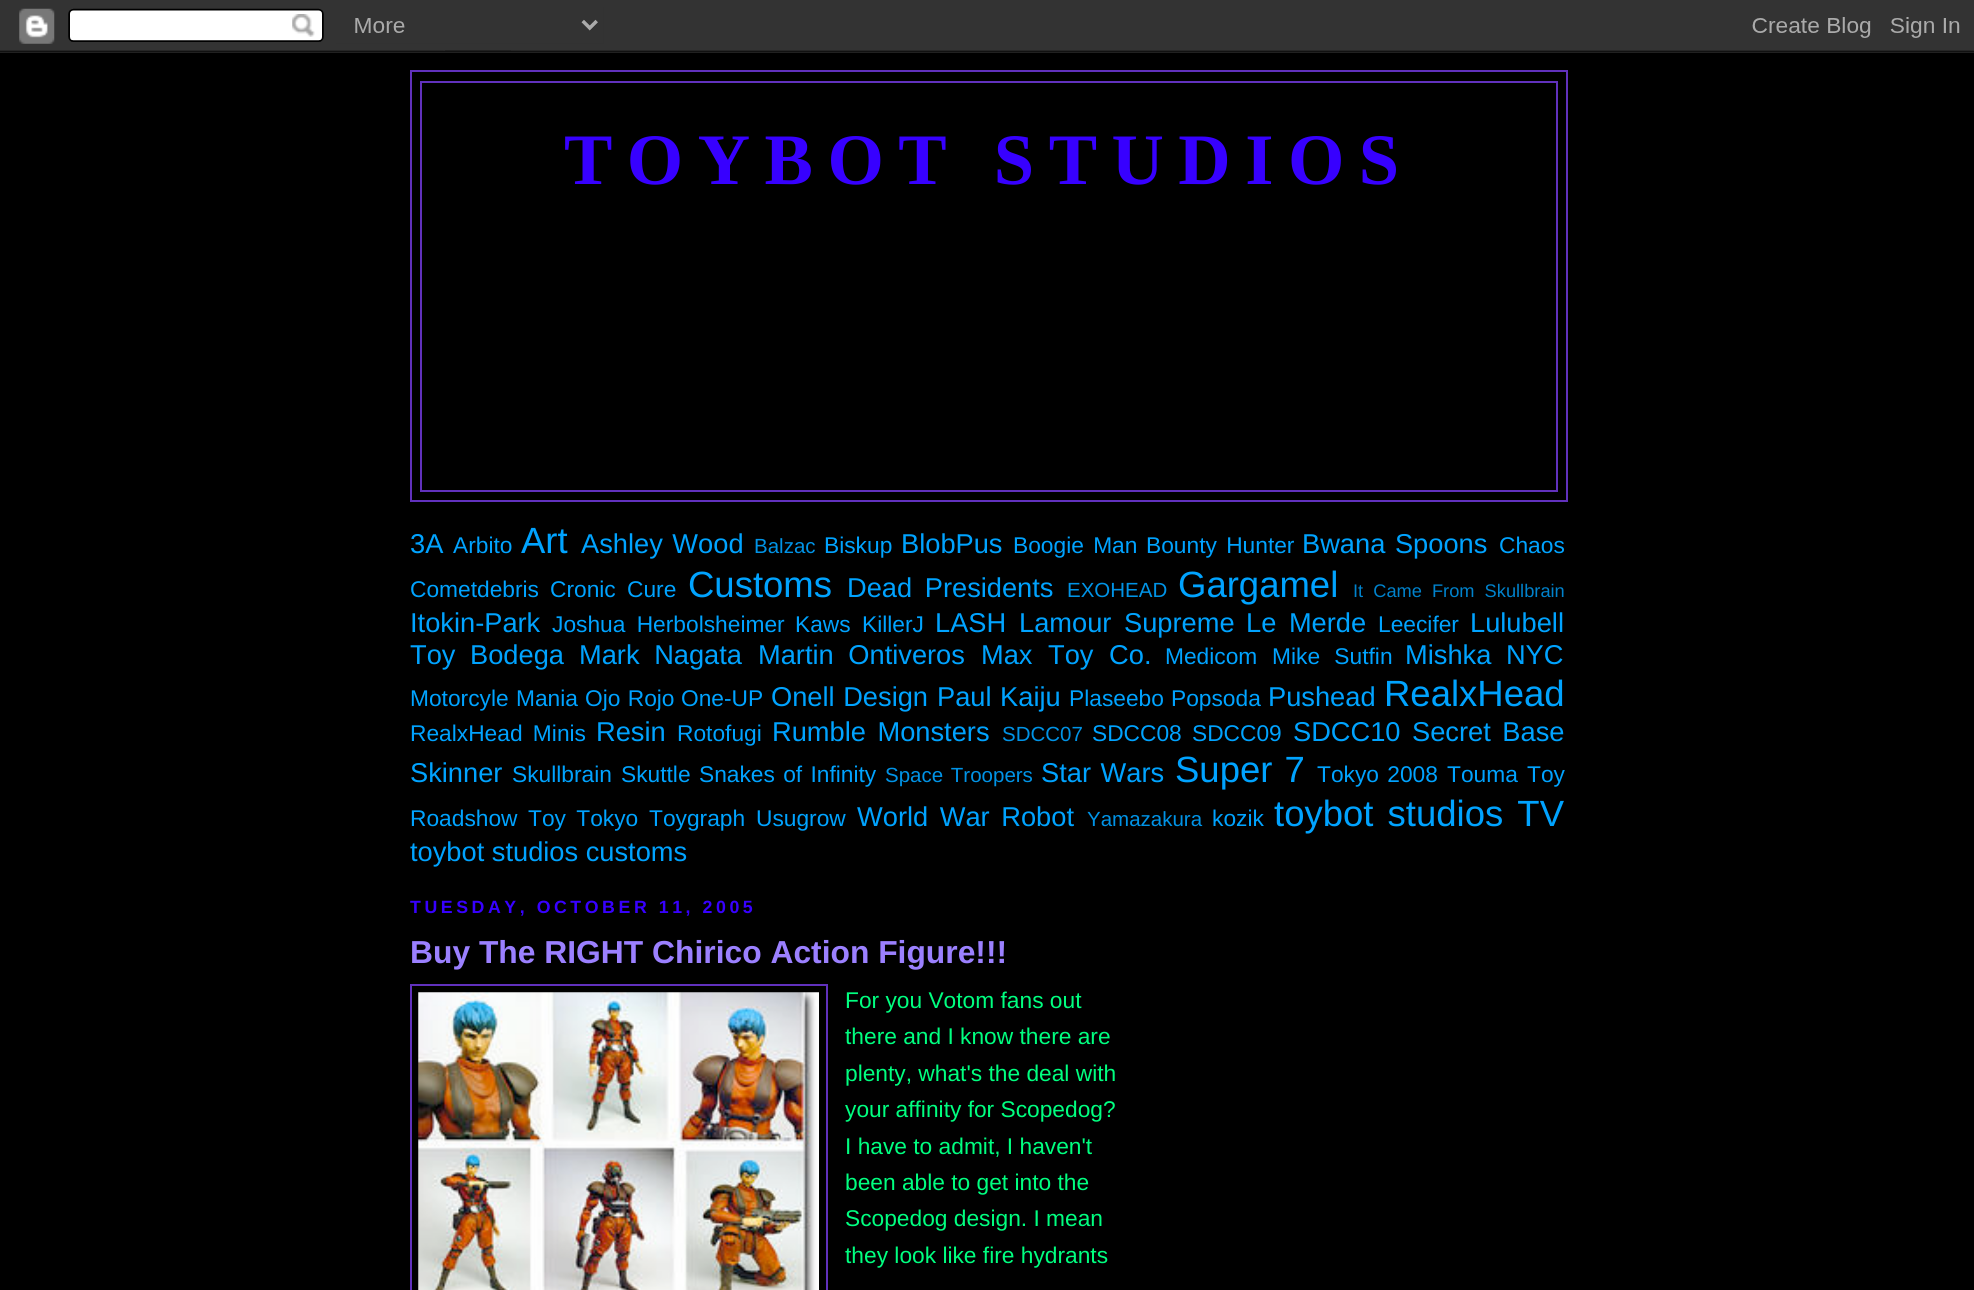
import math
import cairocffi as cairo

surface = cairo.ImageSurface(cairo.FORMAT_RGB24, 1974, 1290)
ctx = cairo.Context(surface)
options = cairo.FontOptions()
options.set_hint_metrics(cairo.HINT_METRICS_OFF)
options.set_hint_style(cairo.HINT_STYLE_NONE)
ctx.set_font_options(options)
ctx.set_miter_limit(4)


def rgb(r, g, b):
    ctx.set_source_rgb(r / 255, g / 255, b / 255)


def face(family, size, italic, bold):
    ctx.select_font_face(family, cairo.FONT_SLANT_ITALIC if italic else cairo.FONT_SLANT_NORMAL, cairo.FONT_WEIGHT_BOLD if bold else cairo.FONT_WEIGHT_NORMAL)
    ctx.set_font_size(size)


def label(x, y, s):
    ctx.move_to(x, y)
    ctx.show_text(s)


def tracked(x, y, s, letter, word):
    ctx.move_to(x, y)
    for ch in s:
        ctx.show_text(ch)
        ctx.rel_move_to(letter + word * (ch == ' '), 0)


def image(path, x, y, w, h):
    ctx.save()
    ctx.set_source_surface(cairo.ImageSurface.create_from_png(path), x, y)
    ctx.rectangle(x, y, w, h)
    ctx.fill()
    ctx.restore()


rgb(0, 0, 0)
ctx.paint()
image('image0.png', 0, 0, 1974, 53)
ctx.rectangle(411, 71, 1156, 430)
rgb(97, 49, 189)
ctx.stroke()
ctx.rectangle(421, 82, 1136, 409)
ctx.stroke()
face('Liberation Serif', 72.5, 0, 1)
rgb(55, 0, 255)
tracked(564, 184, 'TOYBOT STUDIOS', 14.5, 0)
face('Liberation Sans', 27.25, 0, 0)
rgb(0, 163, 255)
label(410, 553, '3A')
face('Liberation Sans', 22.75, 0, 0)
label(453, 553, 'Arbito')
face('Liberation Sans', 36.5, 0, 0)
label(521, 553, 'Art')
face('Liberation Sans', 27.25, 0, 0)
tracked(581, 553, 'Ashley Wood', 0, 2)
face('Liberation Sans', 20.5, 0, 0)
rgb(0, 147, 230)
label(754, 553, 'Balzac')
face('Liberation Sans', 22.75, 0, 0)
rgb(0, 163, 255)
label(824, 553, 'Biskup')
face('Liberation Sans', 27.25, 0, 0)
label(901, 553, 'BlobPus')
face('Liberation Sans', 22.75, 0, 0)
tracked(1013, 553, 'Boogie Man', 0, 3)
tracked(1146, 553, 'Bounty Hunter', 0, 3)
face('Liberation Sans', 27.25, 0, 0)
tracked(1302, 553, 'Bwana Spoons', 0, 2)
face('Liberation Sans', 22.75, 0, 0)
label(1499, 553, 'Chaos')
label(410, 597, 'Cometdebris')
label(550, 597, 'Cronic')
label(627, 597, 'Cure')
face('Liberation Sans', 36.5, 0, 0)
label(688, 597, 'Customs')
face('Liberation Sans', 27.25, 0, 0)
tracked(847, 597, 'Dead Presidents', 0, 5)
face('Liberation Sans', 20.5, 0, 0)
rgb(0, 147, 230)
label(1067, 597, 'EXOHEAD')
face('Liberation Sans', 36.5, 0, 0)
rgb(0, 163, 255)
label(1178, 597, 'Gargamel')
face('Liberation Sans', 18.25, 0, 0)
rgb(0, 130, 204)
tracked(1353, 597, 'It Came From Skullbrain', 0, 5)
face('Liberation Sans', 27.25, 0, 0)
rgb(0, 163, 255)
label(410, 632, 'Itokin-Park')
face('Liberation Sans', 22.75, 0, 0)
tracked(552, 632, 'Joshua Herbolsheimer', 0, 5)
label(795, 632, 'Kaws')
label(862, 632, 'KillerJ')
face('Liberation Sans', 27.25, 0, 0)
label(935, 632, 'LASH')
tracked(1019, 632, 'Lamour Supreme', 0, 5)
tracked(1246, 632, 'Le Merde', 0, 5)
face('Liberation Sans', 22.75, 0, 0)
label(1378, 632, 'Leecifer')
face('Liberation Sans', 27.25, 0, 0)
label(1470, 632, 'Lulubell')
tracked(410, 664, 'Toy Bodega', 0, 7)
tracked(579, 664, 'Mark Nagata', 0, 7)
tracked(758, 664, 'Martin Ontiveros', 0, 7)
tracked(981, 664, 'Max Toy Co.', 0, 8)
face('Liberation Sans', 22.75, 0, 0)
label(1165, 664, 'Medicom')
tracked(1272, 664, 'Mike Sutfin', 0, 8)
face('Liberation Sans', 27.25, 0, 0)
tracked(1405, 664, 'Mishka NYC', 0, 7)
face('Liberation Sans', 22.75, 0, 0)
tracked(410, 706, 'Motorcyle Mania', 0, 1)
tracked(585, 706, 'Ojo Rojo', 0, 1)
label(681, 706, 'One-UP')
face('Liberation Sans', 27.25, 0, 0)
tracked(771, 706, 'Onell Design', 0, 1)
tracked(937, 706, 'Paul Kaiju', 0, 1)
face('Liberation Sans', 22.75, 0, 0)
label(1069, 706, 'Plaseebo')
label(1171, 706, 'Popsoda')
face('Liberation Sans', 27.25, 0, 0)
label(1268, 706, 'Pushead')
face('Liberation Sans', 36.5, 0, 0)
label(1384, 706, 'RealxHead')
face('Liberation Sans', 22.75, 0, 0)
tracked(410, 741, 'RealxHead Minis', 0, 4)
face('Liberation Sans', 27.25, 0, 0)
label(596, 741, 'Resin')
face('Liberation Sans', 22.75, 0, 0)
label(677, 741, 'Rotofugi')
face('Liberation Sans', 27.25, 0, 0)
tracked(772, 741, 'Rumble Monsters', 0, 4)
face('Liberation Sans', 20.5, 0, 0)
rgb(0, 147, 230)
label(1002, 741, 'SDCC07')
face('Liberation Sans', 22.75, 0, 0)
rgb(0, 163, 255)
label(1092, 741, 'SDCC08')
label(1192, 741, 'SDCC09')
face('Liberation Sans', 27.25, 0, 0)
label(1293, 741, 'SDCC10')
tracked(1412, 741, 'Secret Base', 0, 4)
label(410, 782, 'Skinner')
face('Liberation Sans', 22.75, 0, 0)
label(512, 782, 'Skullbrain')
label(621, 782, 'Skuttle')
tracked(699, 782, 'Snakes of Infinity', 0, 2)
face('Liberation Sans', 20.5, 0, 0)
rgb(0, 147, 230)
tracked(885, 782, 'Space Troopers', 0, 2)
face('Liberation Sans', 27.25, 0, 0)
rgb(0, 163, 255)
tracked(1041, 782, 'Star Wars', 0, 2)
face('Liberation Sans', 36.5, 0, 0)
tracked(1175, 782, 'Super 7', 0, 2)
face('Liberation Sans', 22.75, 0, 0)
tracked(1317, 782, 'Tokyo 2008', 0, 2)
label(1447, 782, 'Touma')
label(1527, 782, 'Toy')
label(410, 826, 'Roadshow')
tracked(528, 826, 'Toy Tokyo', 0, 4)
label(649, 826, 'Toygraph')
label(756, 826, 'Usugrow')
face('Liberation Sans', 27.25, 0, 0)
tracked(857, 826, 'World War Robot', 0, 4)
face('Liberation Sans', 20.5, 0, 0)
rgb(0, 147, 230)
label(1087, 826, 'Yamazakura')
face('Liberation Sans', 22.75, 0, 0)
rgb(0, 163, 255)
label(1212, 826, 'kozik')
face('Liberation Sans', 36.5, 0, 0)
tracked(1274, 826, 'toybot studios TV', 0, 4)
face('Liberation Sans', 27.25, 0, 0)
label(410, 861, 'toybot studios customs')
face('Liberation Sans', 17.75, 0, 1)
rgb(55, 0, 255)
tracked(410, 913, 'TUESDAY, OCTOBER 11, 2005', 3.55, 0)
face('Liberation Sans', 31.8, 0, 1)
rgb(155, 128, 255)
label(410, 963, 'Buy The RIGHT Chirico Action Figure!!!')
ctx.rectangle(411, 985, 416, 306)
rgb(97, 49, 189)
ctx.stroke()
image('image1.png', 418, 992, 401, 298)
face('Liberation Sans', 22.75, 0, 0)
rgb(0, 255, 128)
label(845, 1008, 'For you Votom fans out')
label(845, 1044, 'there and I know there are')
label(845, 1081, 'plenty, what\'s the deal with')
label(845, 1117, 'your affinity for Scopedog?')
label(845, 1154, 'I have to admit, I haven\'t')
label(845, 1190, 'been able to get into the')
label(845, 1226, 'Scopedog design. I mean')
label(845, 1263, 'they look like fire hydrants')
surface.write_to_png('render.png')
